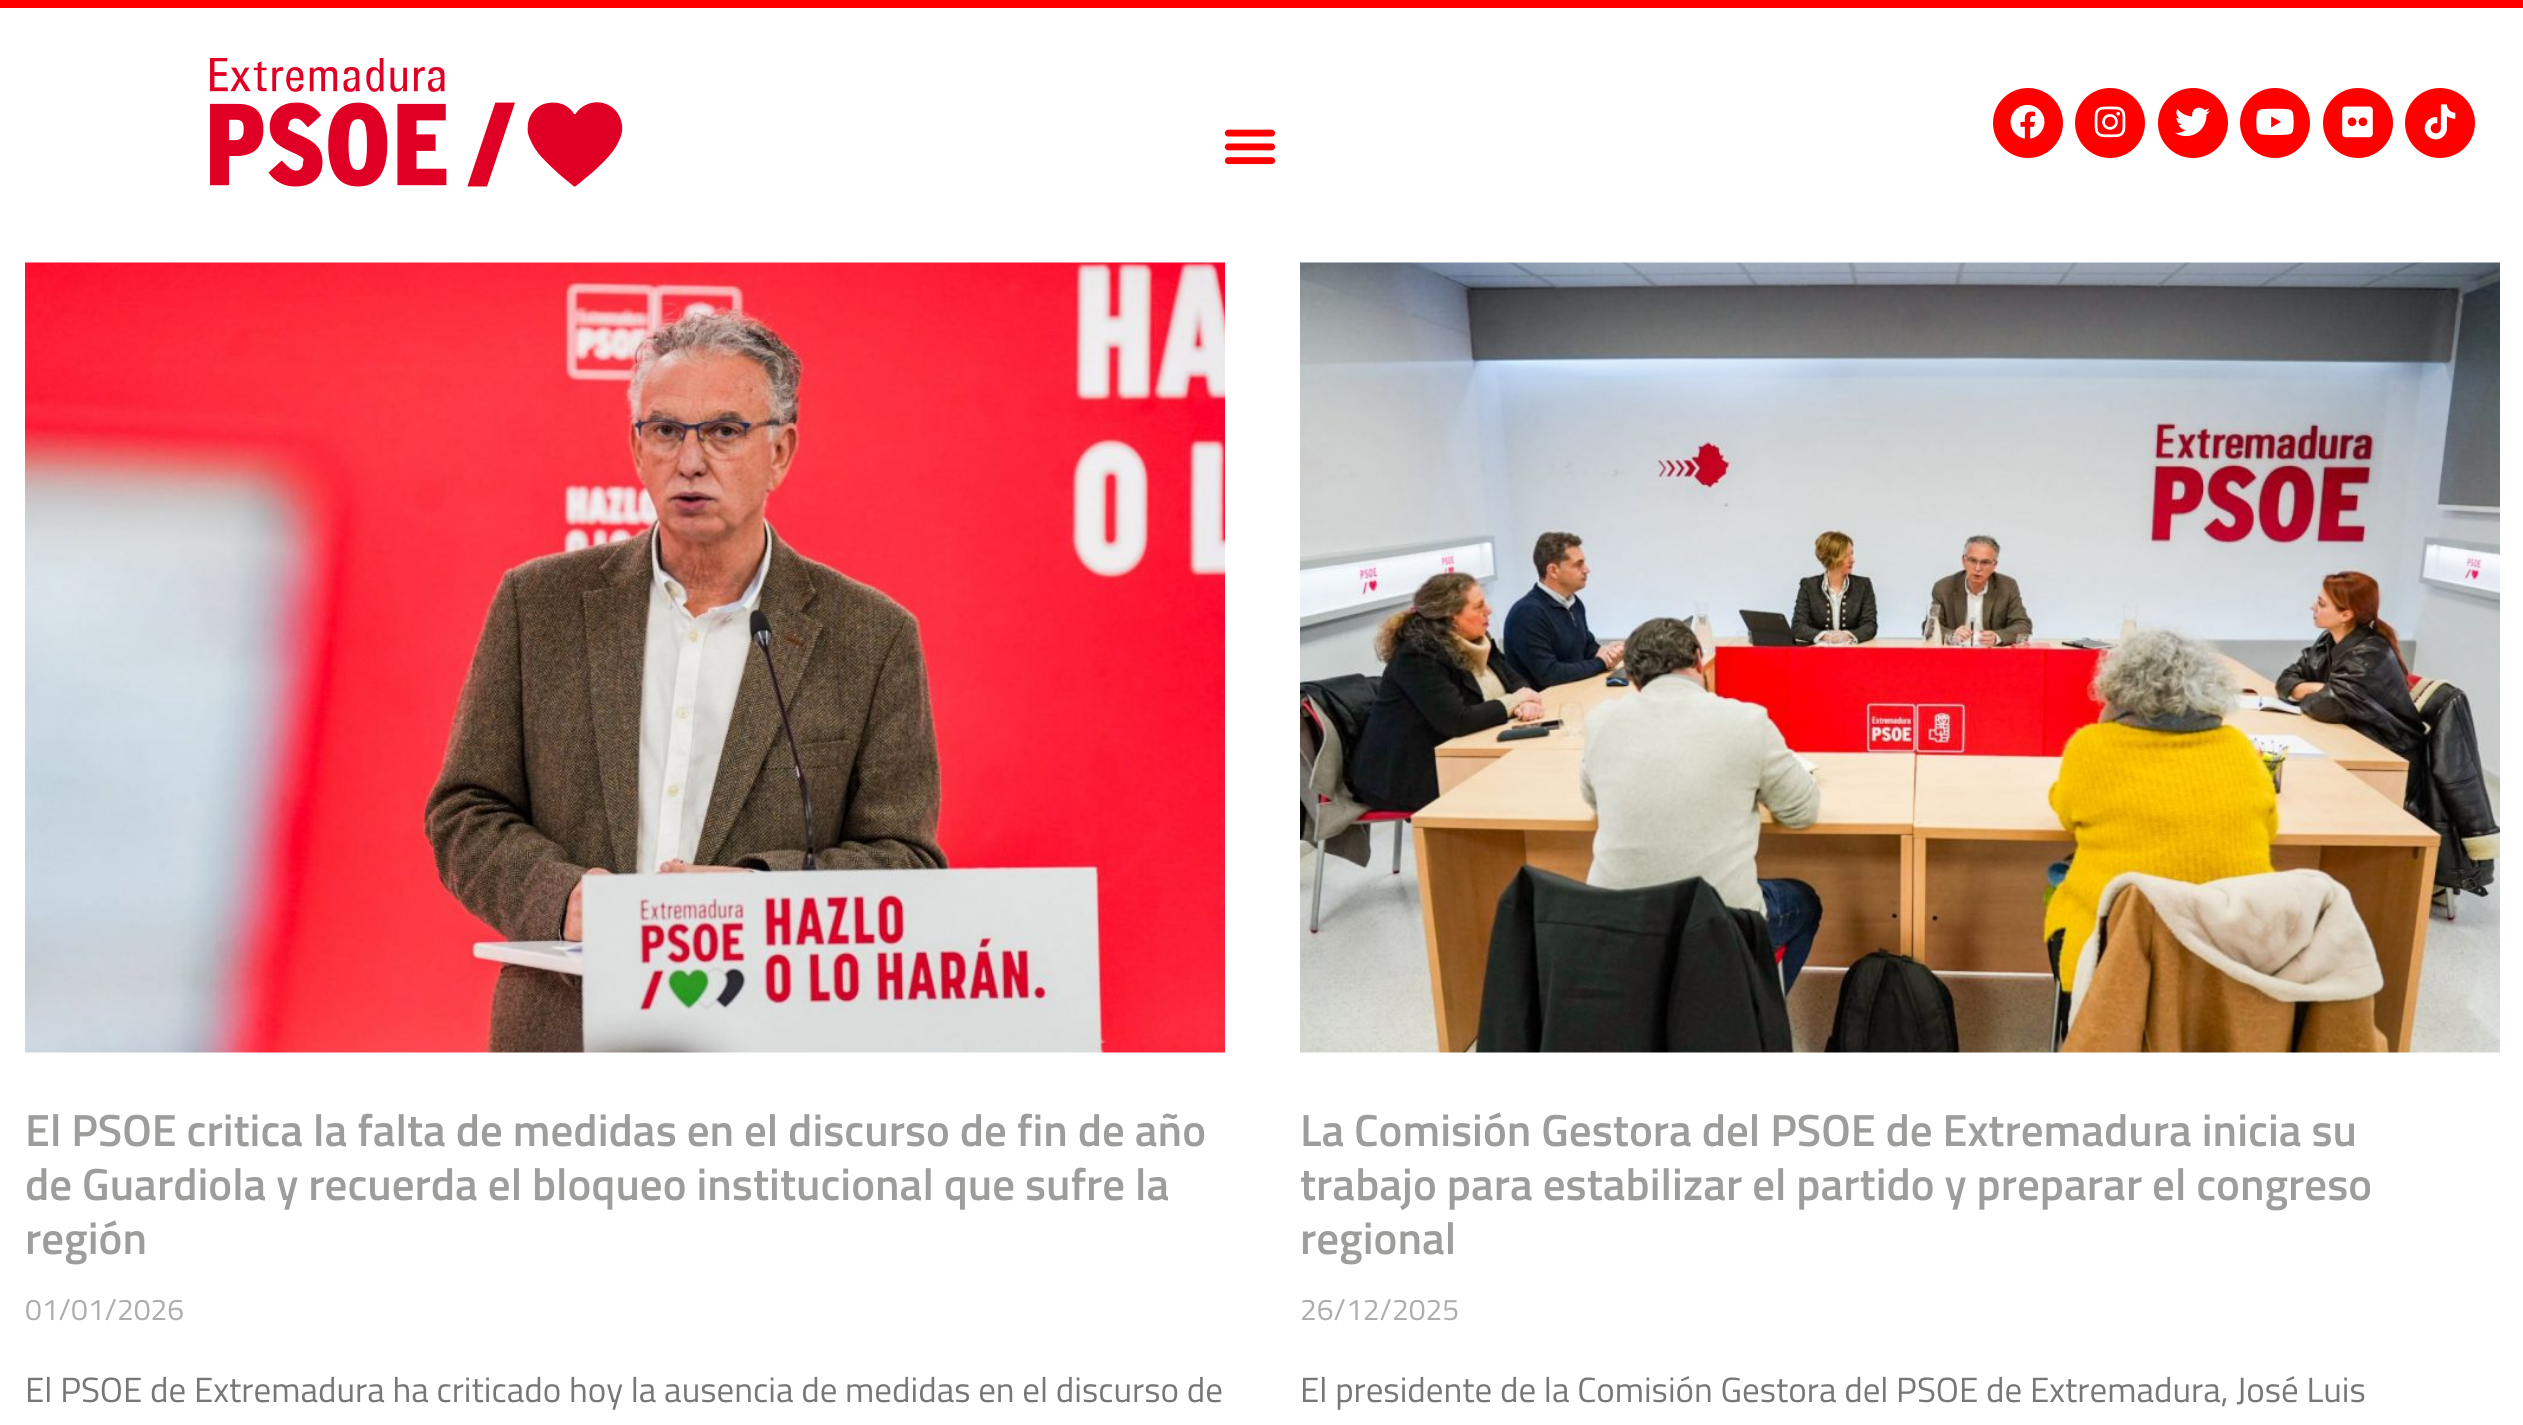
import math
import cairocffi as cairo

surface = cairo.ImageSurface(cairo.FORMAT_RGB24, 2523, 1425)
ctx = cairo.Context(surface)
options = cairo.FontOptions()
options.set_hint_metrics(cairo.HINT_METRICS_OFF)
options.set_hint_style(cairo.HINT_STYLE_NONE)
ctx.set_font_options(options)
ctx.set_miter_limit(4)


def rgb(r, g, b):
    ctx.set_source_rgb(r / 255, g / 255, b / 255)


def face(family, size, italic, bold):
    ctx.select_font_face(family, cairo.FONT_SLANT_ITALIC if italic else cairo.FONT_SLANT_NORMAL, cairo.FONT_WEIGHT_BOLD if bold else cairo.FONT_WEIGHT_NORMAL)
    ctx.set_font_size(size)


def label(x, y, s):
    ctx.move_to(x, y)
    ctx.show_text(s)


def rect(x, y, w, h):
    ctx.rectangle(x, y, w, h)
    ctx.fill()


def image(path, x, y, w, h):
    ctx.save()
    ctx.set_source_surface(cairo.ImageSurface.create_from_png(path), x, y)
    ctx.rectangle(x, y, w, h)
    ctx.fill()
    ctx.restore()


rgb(255, 255, 255)
ctx.paint()
rgb(255, 0, 0)
rect(0, 0, 2523, 8)
image('image0.png', 210, 58, 413, 129)
image('image1.png', 1224, 129, 52, 36)
ctx.arc(2028, 123, 35, 0, 2 * math.pi)
ctx.fill()
image('image2.png', 2010, 104, 35, 35)
ctx.arc(2110, 123, 35, 0, 2 * math.pi)
ctx.fill()
image('image3.png', 2094, 106, 32, 32)
ctx.arc(2193, 123, 35, 0, 2 * math.pi)
ctx.fill()
image('image4.png', 2175, 107, 35, 30)
ctx.arc(2275, 123, 35, 0, 2 * math.pi)
ctx.fill()
image('image5.png', 2256, 108, 38, 27)
ctx.arc(2358, 123, 35, 0, 2 * math.pi)
ctx.fill()
image('image6.png', 2342, 106, 31, 32)
ctx.arc(2440, 123, 35, 0, 2 * math.pi)
ctx.fill()
image('image7.png', 2424, 104, 32, 36)
image('image8.png', 25, 262, 1200, 791)
face('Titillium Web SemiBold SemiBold', 45, 0, 0)
rgb(157, 157, 156)
label(25, 1146, 'El PSOE critica la falta de medidas en el discurso de fin de año')
label(25, 1200, 'de Guardiola y recuerda el bloqueo institucional que sufre la')
label(25, 1254, 'región')
face('Titillium Web', 30, 0, 0)
rgb(173, 173, 173)
label(25, 1320, '01/01/2026')
face('Titillium Web', 35, 0, 0)
rgb(119, 119, 119)
label(25, 1402, 'El PSOE de Extremadura ha criticado hoy la ausencia de medidas en el discurso de')
image('image9.png', 1300, 262, 1200, 791)
face('Titillium Web SemiBold SemiBold', 45, 0, 0)
rgb(157, 157, 156)
label(1300, 1146, 'La Comisión Gestora del PSOE de Extremadura inicia su')
label(1300, 1200, 'trabajo para estabilizar el partido y preparar el congreso')
label(1300, 1254, 'regional')
face('Titillium Web', 30, 0, 0)
rgb(173, 173, 173)
label(1300, 1320, '26/12/2025')
face('Titillium Web', 35, 0, 0)
rgb(119, 119, 119)
label(1300, 1402, 'El presidente de la Comisión Gestora del PSOE de Extremadura, José Luis')
surface.write_to_png('render.png')
